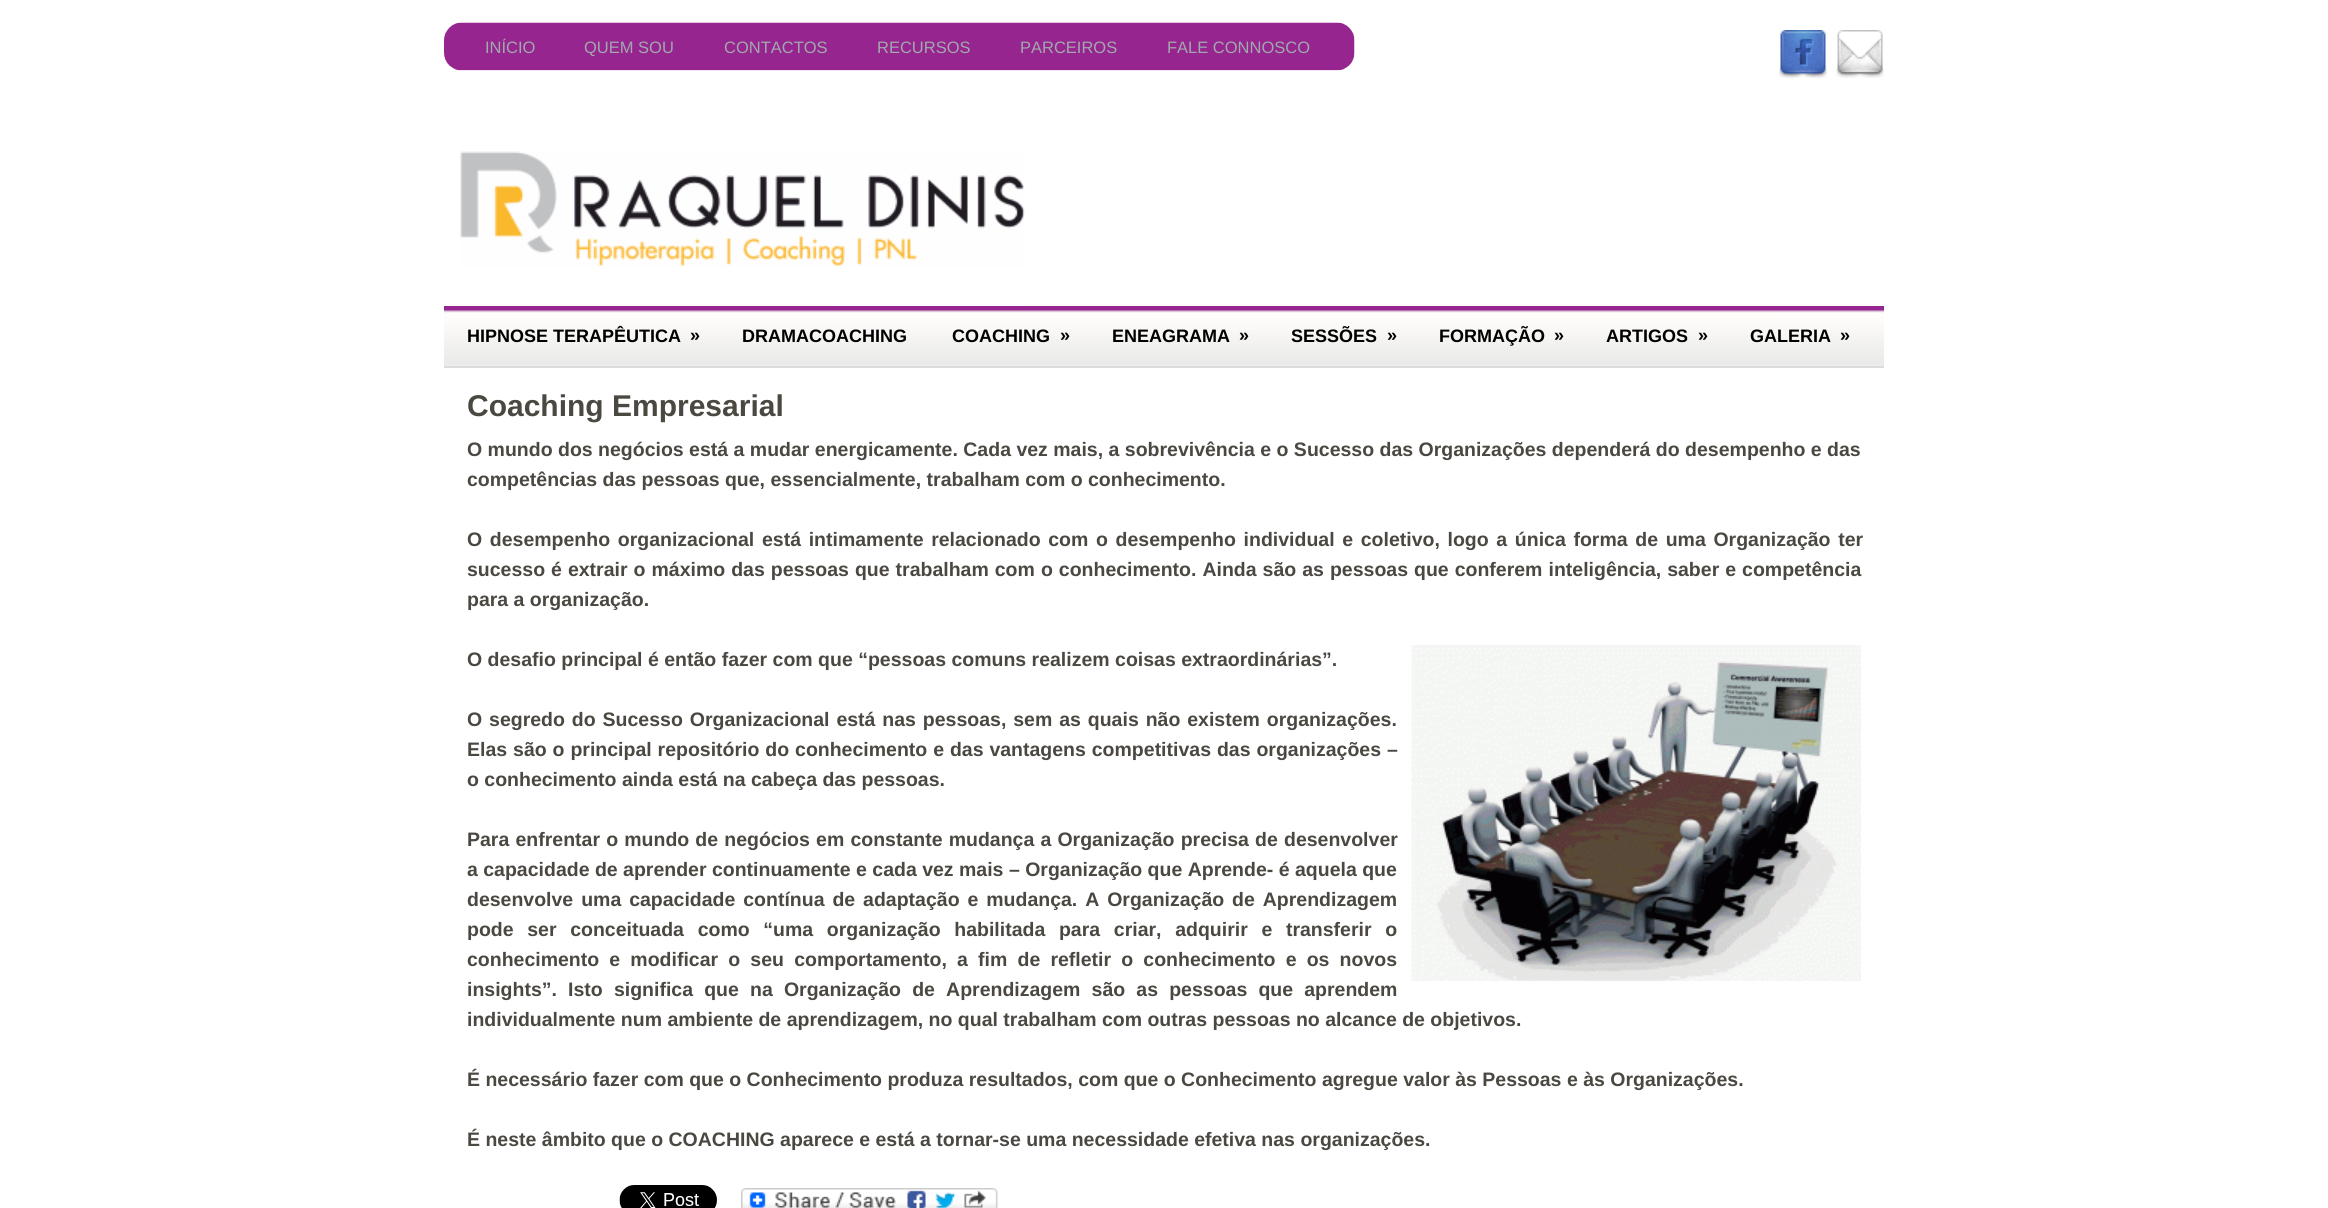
import math
import cairocffi as cairo

surface = cairo.ImageSurface(cairo.FORMAT_RGB24, 2328, 1208)
ctx = cairo.Context(surface)
options = cairo.FontOptions()
options.set_hint_metrics(cairo.HINT_METRICS_OFF)
options.set_hint_style(cairo.HINT_STYLE_NONE)
ctx.set_font_options(options)
ctx.set_miter_limit(4)


def rgb(r, g, b):
    ctx.set_source_rgb(r / 255, g / 255, b / 255)


def face(family, size, italic, bold):
    ctx.select_font_face(family, cairo.FONT_SLANT_ITALIC if italic else cairo.FONT_SLANT_NORMAL, cairo.FONT_WEIGHT_BOLD if bold else cairo.FONT_WEIGHT_NORMAL)
    ctx.set_font_size(size)


def label(x, y, s):
    ctx.move_to(x, y)
    ctx.show_text(s)


def tracked(x, y, s, letter, word):
    ctx.move_to(x, y)
    for ch in s:
        ctx.show_text(ch)
        ctx.rel_move_to(letter + word * (ch == ' '), 0)


def rect(x, y, w, h):
    ctx.rectangle(x, y, w, h)
    ctx.fill()


def image(path, x, y, w, h):
    ctx.save()
    ctx.set_source_surface(cairo.ImageSurface.create_from_png(path), x, y)
    ctx.rectangle(x, y, w, h)
    ctx.fill()
    ctx.restore()


rgb(255, 255, 255)
ctx.paint()
image('image0.png', 444, 22, 911, 49)
face('Liberation Sans', 16.5, 0, 0)
rgb(162, 168, 172)
label(485, 53, 'INÍCIO')
label(584, 53, 'QUEM SOU')
label(724, 53, 'CONTACTOS')
label(877, 53, 'RECURSOS')
label(1020, 53, 'PARCEIROS')
label(1167, 53, 'FALE CONNOSCO')
image('image1.png', 1779, 30, 48, 48)
image('image2.png', 1836, 30, 48, 48)
image('image3.png', 460, 151, 565, 116)
image('image4.png', 444, 306, 1440, 60)
rgb(220, 220, 220)
rect(444, 366, 1440, 2)
face('Liberation Sans', 18, 0, 1)
rgb(0, 0, 0)
label(467, 342, 'HIPNOSE TERAPÊUTICA')
label(690, 341, '»')
label(742, 342, 'DRAMACOACHING')
label(952, 342, 'COACHING')
label(1060, 341, '»')
label(1112, 342, 'ENEAGRAMA')
label(1239, 341, '»')
label(1291, 342, 'SESSÕES')
label(1387, 341, '»')
label(1439, 342, 'FORMAÇÃO')
label(1554, 341, '»')
label(1606, 342, 'ARTIGOS')
label(1698, 341, '»')
label(1750, 342, 'GALERIA')
label(1840, 341, '»')
face('Liberation Sans', 30, 0, 1)
rgb(75, 72, 66)
label(467, 416, 'Coaching Empresarial')
face('Liberation Sans', 19.5, 0, 1)
label(467, 456, 'O mundo dos negócios está a mudar energicamente. Cada vez mais, a sobrevivência e o Sucesso das Organizações dependerá do desempenho e das')
label(467, 486, 'competências das pessoas que, essencialmente, trabalham com o conhecimento.')
tracked(467, 546, 'O desempenho organizacional está intimamente relacionado com o desempenho individual e coletivo, logo a única forma de uma Organização ter', 0, 2.25)
tracked(467, 576, 'sucesso é extrair o máximo das pessoas que trabalham com o conhecimento. Ainda são as pessoas que conferem inteligência, saber e competência', 0, 0.6)
label(467, 606, 'para a organização.')
label(467, 666, 'O desafio principal é então fazer com que “pessoas comuns realizem coisas extraordinárias”.')
image('image5.png', 1411, 645, 450, 336)
tracked(467, 726, 'O segredo do Sucesso Organizacional está nas pessoas, sem as quais não existem organizações.', 0, 1.5)
tracked(467, 756, 'Elas são o principal repositório do conhecimento e das vantagens competitivas das organizações –', 0, 0.5)
label(467, 786, 'o conhecimento ainda está na cabeça das pessoas.')
tracked(467, 846, 'Para enfrentar o mundo de negócios em constante mudança a Organização precisa de desenvolver', 0, 0.75)
label(467, 876, 'a capacidade de aprender continuamente e cada vez mais – Organização que Aprende- é aquela que')
tracked(467, 906, 'desenvolve uma capacidade contínua de adaptação e mudança. A Organização de Aprendizagem', 0, 2.5)
tracked(467, 936, 'pode ser conceituada como “uma organização habilitada para criar, adquirir e transferir o', 0, 8.25)
tracked(467, 966, 'conhecimento e modificar o seu comportamento, a fim de refletir o conhecimento e os novos', 0, 4.75)
tracked(467, 996, 'insights”. Isto significa que na Organização de Aprendizagem são as pessoas que aprendem', 0, 5.75)
label(467, 1026, 'individualmente num ambiente de aprendizagem, no qual trabalham com outras pessoas no alcance de objetivos.')
label(467, 1086, 'É necessário fazer com que o Conhecimento produza resultados, com que o Conhecimento agregue valor às Pessoas e às Organizações.')
label(467, 1146, 'É neste âmbito que o COACHING aparece e está a tornar-se uma necessidade efetiva nas organizações.')
image('image6.png', 619, 1185, 98, 23)
image('image7.png', 741, 1188, 257, 20)
surface.write_to_png('render.png')
